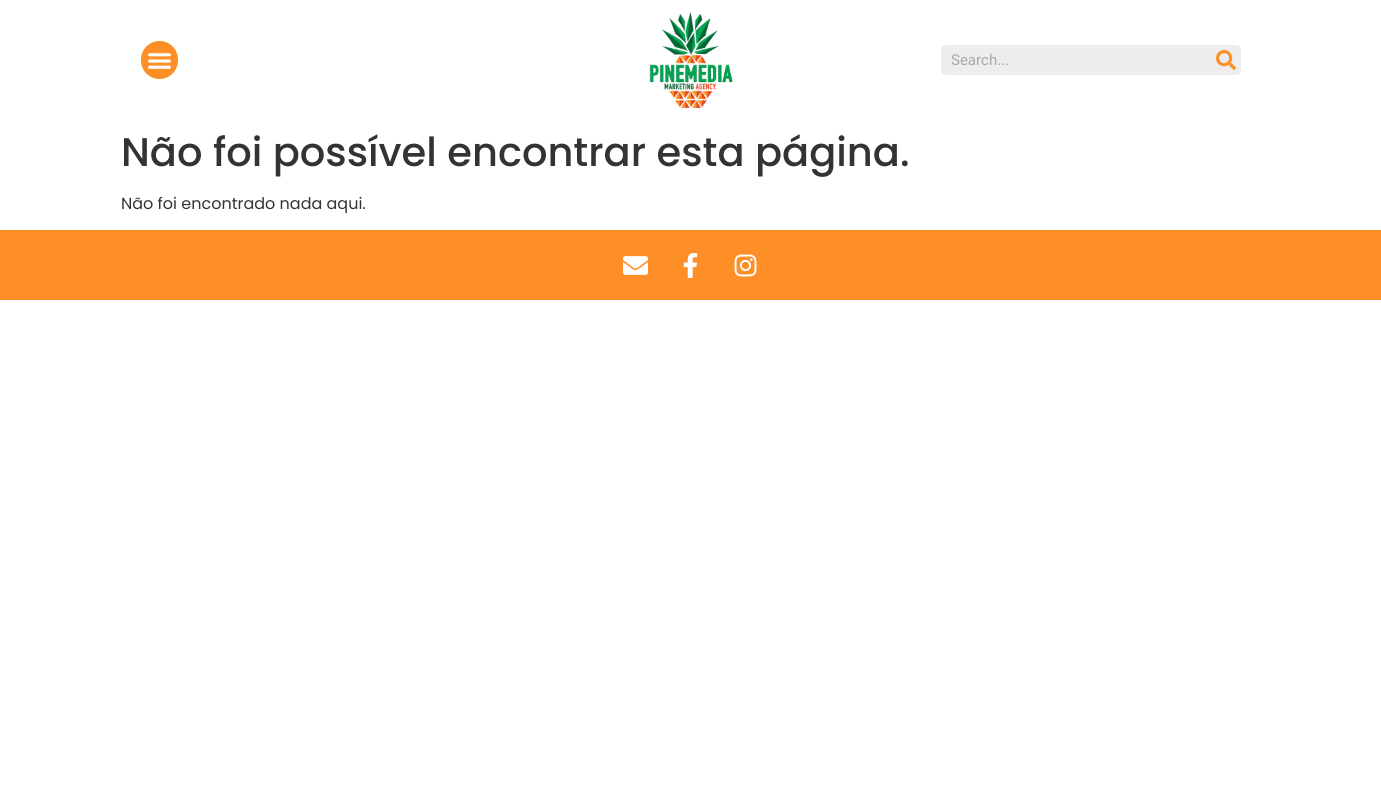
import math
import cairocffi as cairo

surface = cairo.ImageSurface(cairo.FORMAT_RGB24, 1381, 787)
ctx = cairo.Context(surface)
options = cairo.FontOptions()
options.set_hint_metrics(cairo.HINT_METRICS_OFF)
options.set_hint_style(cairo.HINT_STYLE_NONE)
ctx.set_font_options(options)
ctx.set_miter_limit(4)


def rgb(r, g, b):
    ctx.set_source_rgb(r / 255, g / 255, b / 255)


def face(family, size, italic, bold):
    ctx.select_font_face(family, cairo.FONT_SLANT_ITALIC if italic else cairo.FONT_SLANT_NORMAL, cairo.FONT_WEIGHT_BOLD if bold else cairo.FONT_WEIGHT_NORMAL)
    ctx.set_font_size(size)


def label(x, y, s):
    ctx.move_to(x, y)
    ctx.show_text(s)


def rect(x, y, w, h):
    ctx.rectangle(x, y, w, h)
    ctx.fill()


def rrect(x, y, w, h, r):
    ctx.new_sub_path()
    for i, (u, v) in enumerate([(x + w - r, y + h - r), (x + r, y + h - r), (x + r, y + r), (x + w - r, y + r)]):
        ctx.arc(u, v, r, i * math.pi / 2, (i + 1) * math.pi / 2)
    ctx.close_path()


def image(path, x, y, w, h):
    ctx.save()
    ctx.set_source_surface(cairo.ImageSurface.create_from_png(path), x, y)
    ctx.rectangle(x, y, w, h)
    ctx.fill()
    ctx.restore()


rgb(255, 255, 255)
ctx.paint()
rgb(254, 143, 38)
rrect(141, 41, 37, 38, 18.5)
ctx.fill()
image('image0.png', 148, 53, 23, 16)
image('image1.png', 649, 12, 84, 97)
rgb(237, 237, 237)
rrect(941, 45, 300, 30, 5)
ctx.fill()
face('Roboto', 15, 0, 0)
rgb(168, 168, 168)
label(951, 65, 'Search...')
image('image2.png', 1216, 50, 20, 20)
face('Poppins Medium', 40, 0, 0)
rgb(51, 51, 51)
label(121, 166, 'Não foi possível encontrar esta página.')
face('Poppins', 16, 0, 0)
label(121, 209, 'Não foi encontrado nada aqui.')
rgb(254, 143, 38)
rect(0, 230, 1381, 70)
image('image3.png', 623, 256, 25, 19)
image('image4.png', 683, 253, 15, 25)
image('image5.png', 734, 254, 23, 23)
surface.write_to_png('render.png')
